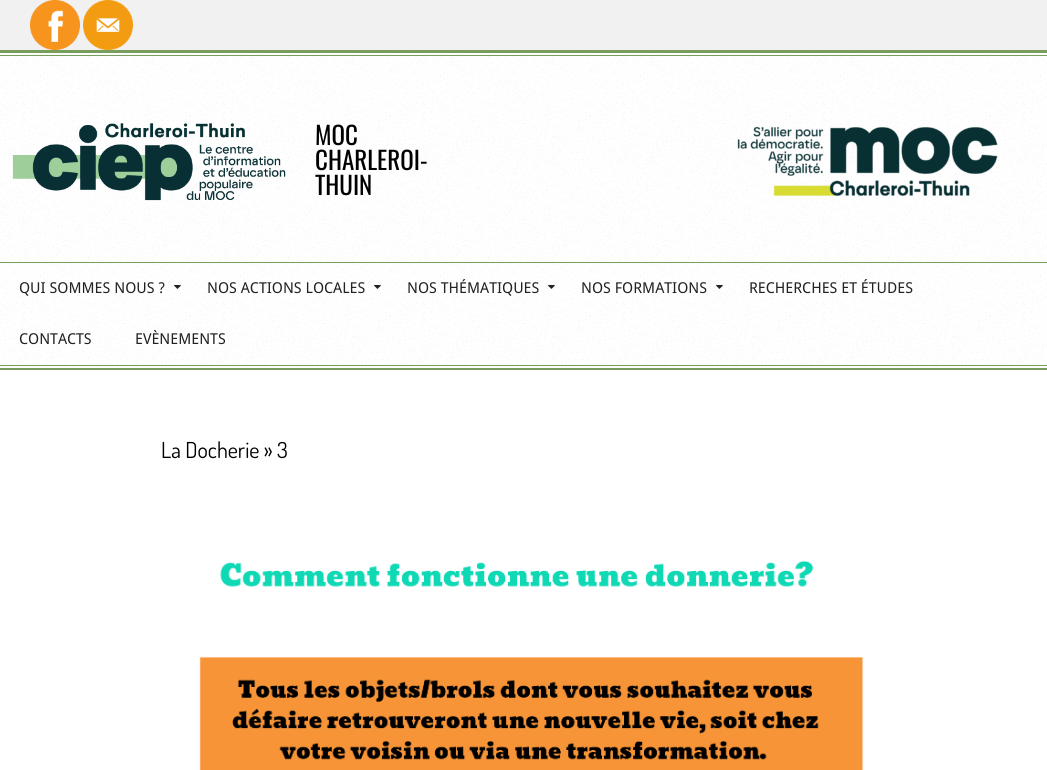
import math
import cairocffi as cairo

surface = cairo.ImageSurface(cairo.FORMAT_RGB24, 1047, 770)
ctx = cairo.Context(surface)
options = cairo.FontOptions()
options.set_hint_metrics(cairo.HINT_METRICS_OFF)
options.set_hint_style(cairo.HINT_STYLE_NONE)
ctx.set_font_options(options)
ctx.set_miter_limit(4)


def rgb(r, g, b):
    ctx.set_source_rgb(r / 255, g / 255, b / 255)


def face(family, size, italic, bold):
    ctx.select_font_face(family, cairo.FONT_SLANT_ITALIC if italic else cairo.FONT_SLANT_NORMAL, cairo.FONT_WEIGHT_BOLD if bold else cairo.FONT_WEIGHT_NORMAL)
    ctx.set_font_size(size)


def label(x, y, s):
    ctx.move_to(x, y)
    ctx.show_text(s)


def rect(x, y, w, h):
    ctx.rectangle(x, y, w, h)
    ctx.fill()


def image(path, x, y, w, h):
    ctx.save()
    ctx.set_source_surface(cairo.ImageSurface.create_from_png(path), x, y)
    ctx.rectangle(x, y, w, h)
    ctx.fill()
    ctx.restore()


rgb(255, 255, 255)
ctx.paint()
image('image0.png', 0, 53, 1047, 315)
rgb(120, 158, 93)
rect(0, 55, 1047, 1)
rgb(241, 241, 241)
rect(0, 0, 1047, 50)
rgb(120, 158, 93)
rect(0, 50, 1047, 3)
image('image1.png', 30, 0, 50, 50)
image('image2.png', 83, 0, 50, 50)
image('image3.png', 12, 123, 274, 78)
face('Oswald', 25, 0, 0)
rgb(0, 0, 0)
label(315, 145, 'MOC')
label(315, 170, 'CHARLEROI-')
label(315, 195, 'THUIN')
image('image4.png', 737, 126, 261, 70)
rgb(120, 158, 93)
rect(0, 262, 1047, 1)
rect(0, 368, 1047, 2)
face('Droid Sans', 15, 0, 0)
rgb(34, 34, 34)
label(19, 293, 'QUI SOMMES NOUS ?')
image('image5.png', 174, 285, 7, 4)
label(207, 293, 'NOS ACTIONS LOCALES')
image('image5.png', 374, 285, 7, 4)
label(407, 293, 'NOS THÉMATIQUES')
image('image6.png', 548, 285, 7, 4)
label(581, 293, 'NOS FORMATIONS')
image('image7.png', 716, 285, 7, 4)
label(749, 293, 'RECHERCHES ET ÉTUDES')
label(19, 344, 'CONTACTS')
label(135, 344, 'EVÈNEMENTS')
rgb(120, 158, 93)
rect(0, 365, 1047, 1)
face('Dosis', 22, 0, 0)
rgb(0, 0, 0)
label(161, 458, 'La Docherie » 3')
image('image8.png', 199, 561, 665, 209)
surface.write_to_png('render.png')
